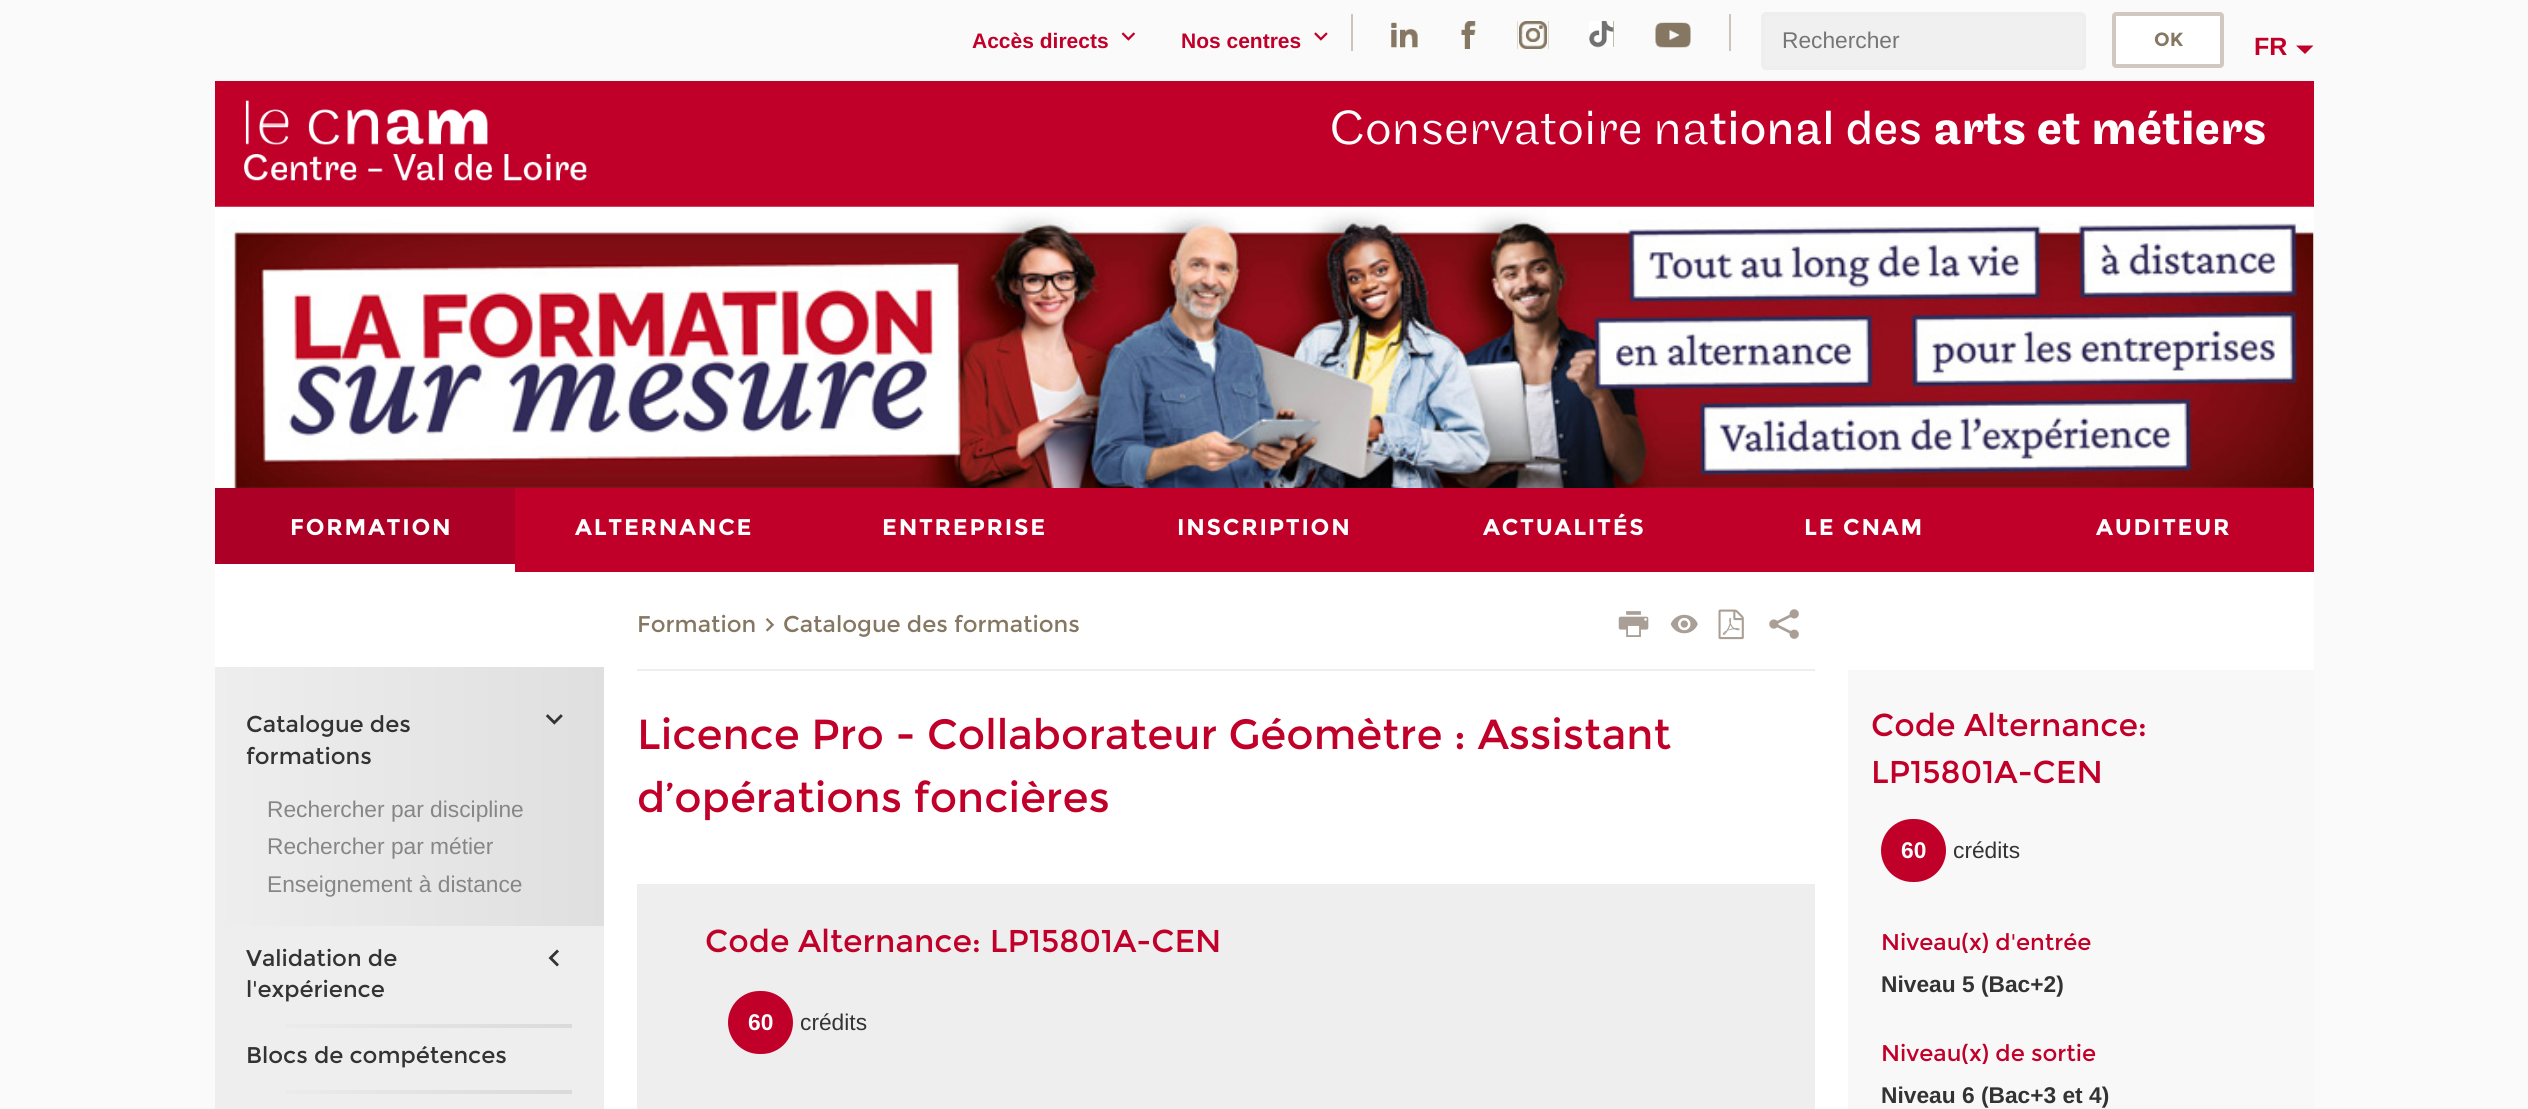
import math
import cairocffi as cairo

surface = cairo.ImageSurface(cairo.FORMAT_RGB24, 2528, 1109)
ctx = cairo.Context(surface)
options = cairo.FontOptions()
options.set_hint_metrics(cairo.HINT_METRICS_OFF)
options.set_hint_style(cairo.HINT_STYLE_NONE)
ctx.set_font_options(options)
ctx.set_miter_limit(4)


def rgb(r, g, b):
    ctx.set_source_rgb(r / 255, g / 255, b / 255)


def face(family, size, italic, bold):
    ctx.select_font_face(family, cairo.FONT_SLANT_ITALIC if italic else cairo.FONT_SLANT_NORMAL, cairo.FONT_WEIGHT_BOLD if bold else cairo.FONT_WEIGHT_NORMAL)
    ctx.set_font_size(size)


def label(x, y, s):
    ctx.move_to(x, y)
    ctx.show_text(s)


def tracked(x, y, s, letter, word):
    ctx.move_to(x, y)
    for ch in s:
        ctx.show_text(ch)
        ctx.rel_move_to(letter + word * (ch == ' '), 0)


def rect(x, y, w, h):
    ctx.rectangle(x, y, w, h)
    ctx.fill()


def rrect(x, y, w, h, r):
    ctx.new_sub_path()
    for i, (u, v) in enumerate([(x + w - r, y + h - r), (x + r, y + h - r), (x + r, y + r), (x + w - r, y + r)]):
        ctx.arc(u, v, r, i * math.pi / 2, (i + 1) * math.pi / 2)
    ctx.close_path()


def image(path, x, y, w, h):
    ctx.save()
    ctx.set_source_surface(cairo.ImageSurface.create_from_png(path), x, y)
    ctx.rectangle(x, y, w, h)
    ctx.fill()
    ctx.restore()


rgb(250, 250, 250)
ctx.paint()
face('Liberation Sans', 21, 0, 1)
rgb(193, 0, 42)
label(972, 48, 'Accès directs')
image('image0.png', 1121, 32, 15, 9)
label(1181, 48, 'Nos centres')
image('image1.png', 1314, 32, 14, 9)
rgb(203, 198, 189)
rect(1729, 14, 2, 37)
rect(1351, 14, 2, 37)
rgb(133, 119, 97)
rect(1391, 22, 27, 26)
image('image2.png', 1390, 21, 29, 28)
rect(1461, 21, 15, 28)
image('image3.png', 1460, 21, 17, 28)
rect(1517, 21, 32, 28)
image('image4.png', 1517, 21, 32, 28)
rect(1613, 21, 1, 26)
image('image5.png', 1589, 21, 25, 27)
rect(1655, 22, 36, 26)
image('image6.png', 1654, 21, 38, 28)
rgb(240, 240, 240)
rrect(1763, 14, 321, 54, 3)
ctx.fill_preserve()
rgb(238, 238, 238)
ctx.set_line_width(4)
ctx.stroke()
face('Liberation Sans', 22.75, 0, 0)
rgb(117, 117, 117)
label(1782, 48, 'Rechercher')
rgb(255, 255, 255)
rrect(2114, 14, 108, 52, 2)
ctx.fill_preserve()
rgb(207, 200, 192)
ctx.stroke()
face('Montserrat', 19, 0, 1)
rgb(133, 119, 97)
label(2154, 46, 'OK')
face('Liberation Sans', 25, 0, 1)
rgb(193, 0, 42)
label(2254, 55, 'FR')
ctx.new_path()
ctx.move_to(2296, 45.5)
ctx.line_to(2313.5, 45.5)
ctx.line_to(2305, 54)
ctx.close_path()
ctx.fill()
rect(215, 81, 2099, 126)
image('image7.png', 244, 100, 343, 81)
face('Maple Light', 50, 0, 0)
rgb(255, 255, 255)
label(1330, 144, 'Conservatoire na')
face('Maple', 50, 0, 0)
label(1710, 144, 'tional des')
face('Maple Medium', 50, 0, 0)
label(1933, 144, 'arts et métiers')
rect(215, 207, 2099, 281)
image('image8.png', 215, 206, 2099, 282)
rgb(193, 0, 42)
rect(515, 488, 1799, 84)
rgb(173, 0, 38)
rect(215, 488, 300, 76)
rgb(255, 255, 255)
rect(215, 564, 300, 8)
face('Montserrat', 22.75, 0, 1)
tracked(290, 535, 'FORMATION', 1.75, 0)
tracked(575, 535, 'ALTERNANCE', 1.75, 0)
tracked(882, 535, 'ENTREPRISE', 1.75, 0)
tracked(1177, 535, 'INSCRIPTION', 1.75, 0)
tracked(1483, 535, 'ACTUALITÉS', 1.75, 0)
tracked(1804, 535, 'LE CNAM', 1.75, 0)
tracked(2096, 535, 'AUDITEUR', 1.75, 0)
rect(215, 572, 2099, 537)
rgb(238, 238, 238)
rect(215, 926, 389, 183)
gradient = cairo.LinearGradient(215, 796, 604, 796)
gradient.add_color_stop_rgba(0, 0.933, 0.933, 0.933, 1)
gradient.add_color_stop_rgba(1, 0.875, 0.875, 0.875, 1)
ctx.set_source(gradient)
rect(215, 667, 389, 259)
face('Montserrat', 22.75, 0, 0)
rgb(51, 51, 51)
label(246, 732, 'Catalogue des')
label(246, 764, 'formations')
image('image9.png', 545, 714, 18, 11)
face('Liberation Sans', 22.75, 0, 0)
rgb(134, 134, 134)
label(267, 817, 'Rechercher par discipline')
label(267, 854, 'Rechercher par métier')
label(267, 892, 'Enseignement à distance')
face('Montserrat', 22.75, 0, 0)
rgb(51, 51, 51)
label(246, 966, 'Validation de')
label(246, 997, 'l\'expérience')
ctx.new_path()
ctx.move_to(559, 951.5)
ctx.line_to(552.5, 958)
ctx.line_to(559, 964.5)
ctx.line_to(557, 966.5)
ctx.line_to(548.5, 958)
ctx.line_to(557, 949.5)
ctx.close_path()
ctx.fill()
gradient = cairo.LinearGradient(245, 1026, 572, 1026)
gradient.add_color_stop_rgba(0, 0.933, 0.933, 0.933, 1)
gradient.add_color_stop_rgba(1, 0.855, 0.855, 0.855, 1)
ctx.set_source(gradient)
rect(286, 1024, 286, 4)
rgb(51, 51, 51)
label(246, 1063, 'Blocs de compétences')
gradient = cairo.LinearGradient(245, 1092, 572, 1092)
gradient.add_color_stop_rgba(0, 0.933, 0.933, 0.933, 1)
gradient.add_color_stop_rgba(1, 0.855, 0.855, 0.855, 1)
ctx.set_source(gradient)
rect(286, 1090, 286, 4)
rgb(238, 238, 238)
rect(637, 669, 1178, 2)
rgb(133, 119, 97)
label(637, 632, 'Formation')
image('image10.png', 765, 618, 10, 14)
label(783, 632, 'Catalogue des formations')
image('image11.png', 1618, 611, 31, 26)
image('image12.png', 1670, 614, 28, 20)
image('image13.png', 1718, 609, 26, 31)
image('image14.png', 1769, 609, 30, 30)
face('Montserrat', 42, 0, 0)
rgb(193, 0, 42)
label(637, 749, 'Licence Pro - Collaborateur Géomètre : Assistant')
label(637, 812, 'd’opérations foncières')
rgb(238, 238, 238)
rect(637, 884, 1178, 225)
face('Montserrat', 31.5, 0, 0)
rgb(193, 0, 42)
label(705, 952, 'Code Alternance: LP15801A-CEN')
rrect(728, 991, 65, 63, 31.5)
ctx.fill()
face('Liberation Sans', 22.75, 0, 1)
rgb(255, 255, 255)
label(748, 1030, '60')
face('Liberation Sans', 22.75, 0, 0)
rgb(51, 51, 51)
label(800, 1030, 'crédits')
rgb(248, 248, 248)
rect(1848, 670, 466, 439)
face('Montserrat', 31.5, 0, 0)
rgb(193, 0, 42)
label(1871, 736, 'Code Alternance:')
label(1871, 783, 'LP15801A-CEN')
rrect(1881, 819, 65, 63, 31.5)
ctx.fill()
face('Liberation Sans', 22.75, 0, 1)
rgb(255, 255, 255)
label(1901, 858, '60')
face('Liberation Sans', 22.75, 0, 0)
rgb(51, 51, 51)
label(1953, 858, 'crédits')
face('Montserrat', 22.75, 0, 0)
rgb(193, 0, 42)
label(1881, 950, 'Niveau(x) d\'entrée')
face('Liberation Sans', 22.75, 0, 1)
rgb(51, 51, 51)
label(1881, 992, 'Niveau 5 (Bac+2)')
face('Montserrat', 22.75, 0, 0)
rgb(193, 0, 42)
label(1881, 1061, 'Niveau(x) de sortie')
face('Liberation Sans', 22.75, 0, 1)
rgb(51, 51, 51)
label(1881, 1103, 'Niveau 6 (Bac+3 et 4)')
surface.write_to_png('render.png')
